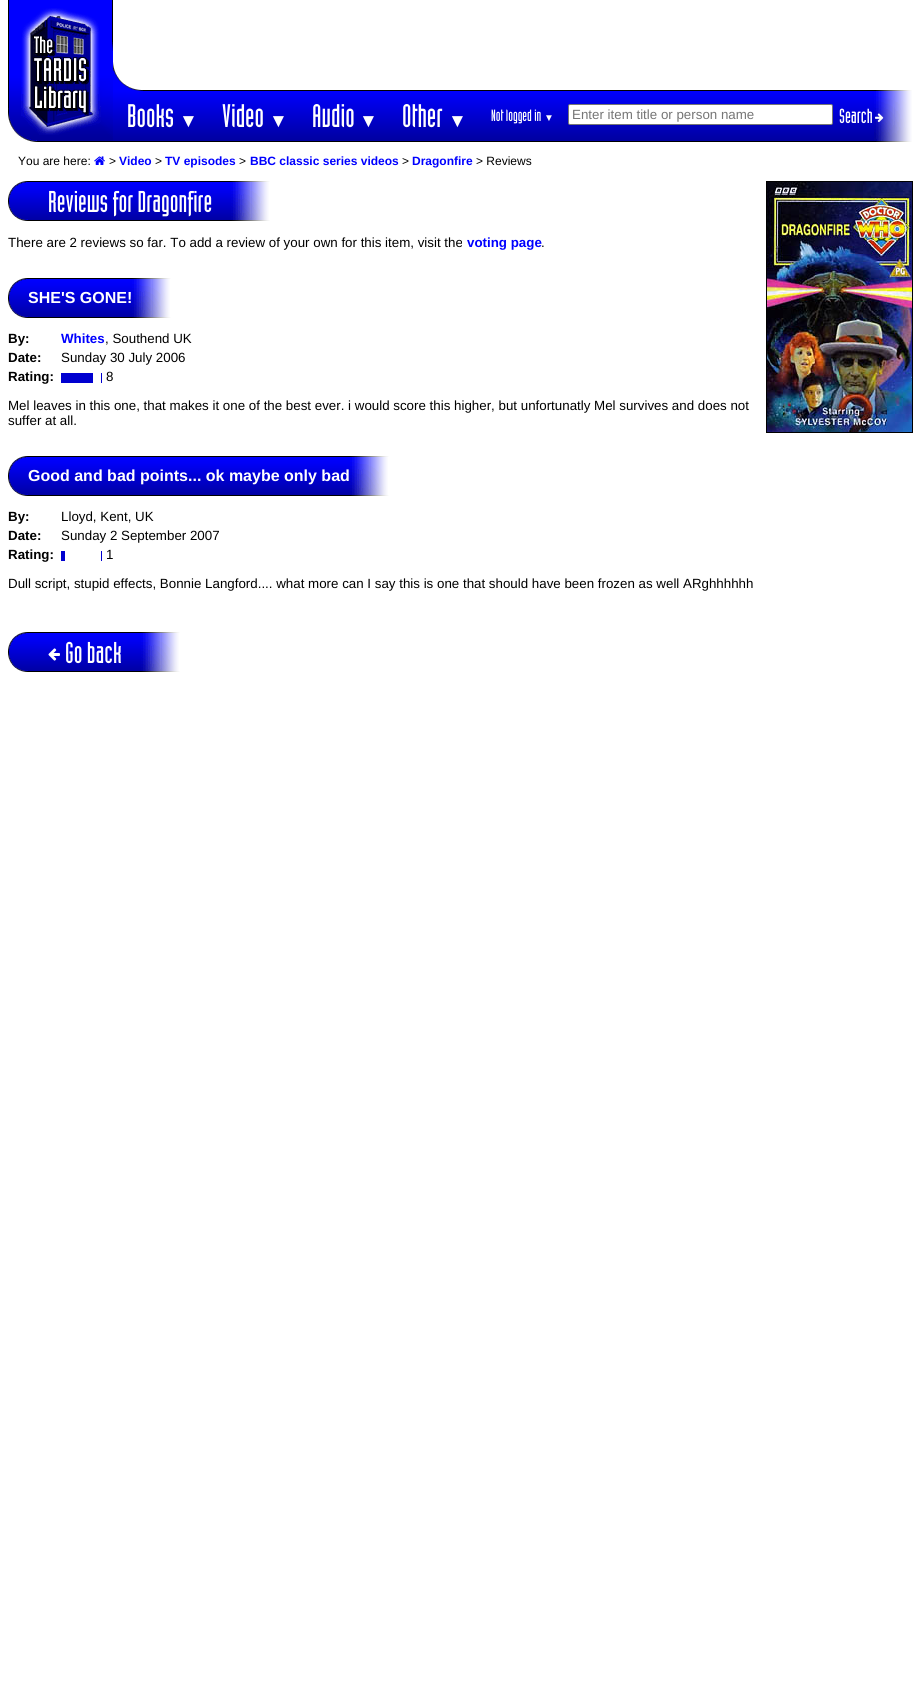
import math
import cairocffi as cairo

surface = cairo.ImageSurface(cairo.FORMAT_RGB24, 921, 1697)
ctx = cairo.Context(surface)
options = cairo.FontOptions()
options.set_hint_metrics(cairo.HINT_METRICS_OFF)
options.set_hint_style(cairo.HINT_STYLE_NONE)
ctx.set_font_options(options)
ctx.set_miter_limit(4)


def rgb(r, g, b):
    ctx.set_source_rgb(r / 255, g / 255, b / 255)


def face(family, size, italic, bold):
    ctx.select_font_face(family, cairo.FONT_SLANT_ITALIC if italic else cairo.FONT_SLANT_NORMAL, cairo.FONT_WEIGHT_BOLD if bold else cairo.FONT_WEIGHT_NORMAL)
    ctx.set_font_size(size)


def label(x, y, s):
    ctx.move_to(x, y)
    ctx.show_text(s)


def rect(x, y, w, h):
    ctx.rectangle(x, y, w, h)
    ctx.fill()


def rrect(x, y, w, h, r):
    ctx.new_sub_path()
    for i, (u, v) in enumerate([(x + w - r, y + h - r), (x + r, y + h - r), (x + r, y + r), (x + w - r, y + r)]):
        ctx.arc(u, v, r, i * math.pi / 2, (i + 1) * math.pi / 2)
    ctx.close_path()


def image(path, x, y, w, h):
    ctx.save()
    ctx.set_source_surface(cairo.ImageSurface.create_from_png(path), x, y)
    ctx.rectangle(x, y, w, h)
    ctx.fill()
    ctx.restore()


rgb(255, 255, 255)
ctx.paint()
image('image0.png', 8, 0, 105, 142)
image('image1.png', 21, 8, 80, 127)
image('image2.png', 113, 62, 28, 28)
rgb(0, 0, 0)
rect(143, 90, 733, 1)
image('image3.png', 876, 90, 37, 1)
image('image4.png', 113, 90, 30, 1)
gradient = cairo.LinearGradient(494, 91, 494, 141)
gradient.add_color_stop_rgba(0, 0, 0, 1, 1)
gradient.add_color_stop_rgba(1, 0, 0, 0.627, 1)
ctx.set_source(gradient)
rect(113, 91, 761, 50)
face('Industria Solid', 32, 0, 0)
rgb(255, 255, 255)
label(127, 127, 'Books')
face('Liberation Sans', 19, 0, 0)
label(179, 127, '▼')
face('Industria Solid', 32, 0, 0)
label(222, 127, 'Video')
face('Liberation Sans', 19, 0, 0)
label(269, 127, '▼')
face('Industria Solid', 32, 0, 0)
label(312, 127, 'Audio')
face('Liberation Sans', 19, 0, 0)
label(359, 127, '▼')
face('Industria Solid', 32, 0, 0)
label(402, 127, 'Other')
face('Liberation Sans', 19, 0, 0)
label(448, 127, '▼')
face('Industria Solid', 16, 0, 0)
label(491, 121, 'Not logged in')
face('Liberation Sans', 10, 0, 0)
label(544, 121, '▼')
rrect(568.5, 104.5, 264, 20, 1.5)
ctx.fill_preserve()
rgb(118, 118, 118)
ctx.set_line_width(1)
ctx.stroke()
face('Liberation Sans', 13.33, 0, 0)
rgb(117, 117, 117)
label(572, 119, 'Enter item title or person name')
face('Industria Solid', 20, 0, 0)
rgb(255, 255, 255)
label(839, 123, 'Search')
image('image6.png', 874, 91, 39, 50)
image('image5.png', 875, 113, 9, 10)
rgb(0, 0, 0)
rect(113, 141, 763, 1)
image('image3.png', 876, 141, 37, 1)
face('Liberation Sans', 12, 0, 0)
label(18, 165, 'You are here:')
image('image7.png', 94, 156, 11, 9)
label(109, 165, '>')
face('Liberation Sans', 12, 0, 1)
rgb(0, 0, 255)
label(119, 165, 'Video')
face('Liberation Sans', 12, 0, 0)
rgb(0, 0, 0)
label(155, 165, '>')
face('Liberation Sans', 12, 0, 1)
rgb(0, 0, 255)
label(165, 165, 'TV episodes')
face('Liberation Sans', 12, 0, 0)
rgb(0, 0, 0)
label(239, 165, '>')
face('Liberation Sans', 12, 0, 1)
rgb(0, 0, 255)
label(250, 165, 'BBC classic series videos')
face('Liberation Sans', 12, 0, 0)
rgb(0, 0, 0)
label(402, 165, '>')
face('Liberation Sans', 12, 0, 1)
rgb(0, 0, 255)
label(412, 165, 'Dragonfire')
face('Liberation Sans', 12, 0, 0)
rgb(0, 0, 0)
label(476, 165, '> Reviews')
image('image8.png', 8, 181, 20, 1)
rect(28, 181, 203, 1)
image('image9.png', 231, 181, 39, 1)
image('image10.png', 8, 182, 20, 37)
image('image11.png', 8, 201, 20, 19)
image('image12.png', 28, 182, 203, 38)
face('Industria Solid', 29.5, 0, 0)
rgb(255, 255, 255)
label(48, 212, 'Reviews for Dragonfire')
image('image13.png', 231, 182, 39, 38)
image('image8.png', 8, 220, 20, 1)
rgb(0, 0, 0)
rect(28, 220, 203, 1)
image('image9.png', 231, 220, 39, 1)
ctx.rectangle(766.5, 181.5, 146, 251)
ctx.stroke()
image('image14.png', 767, 182, 145, 250)
face('Liberation Sans', 13.33, 0, 0)
label(8, 247, 'There are 2 reviews so far. To add a review of your own for this item, visit the')
face('Liberation Sans', 13.33, 0, 1)
rgb(0, 0, 255)
label(467, 247, 'voting page')
face('Liberation Sans', 13.33, 0, 0)
rgb(0, 0, 0)
label(541, 247, '.')
image('image8.png', 8, 278, 20, 1)
rect(28, 278, 104, 1)
image('image9.png', 132, 278, 39, 1)
image('image10.png', 8, 279, 20, 37)
image('image11.png', 8, 298, 20, 19)
image('image15.png', 28, 279, 104, 38)
face('Liberation Sans', 16, 0, 1)
rgb(255, 255, 255)
label(28, 303, 'SHE\'S GONE!')
image('image13.png', 132, 279, 39, 38)
image('image8.png', 8, 317, 20, 1)
rgb(0, 0, 0)
rect(28, 317, 104, 1)
image('image9.png', 132, 317, 39, 1)
face('Liberation Sans', 13.33, 0, 1)
label(8, 343, 'By:')
rgb(0, 0, 255)
label(61, 343, 'Whites')
face('Liberation Sans', 13.33, 0, 0)
rgb(0, 0, 0)
label(105, 343, ', Southend UK')
face('Liberation Sans', 13.33, 0, 1)
label(8, 362, 'Date:')
face('Liberation Sans', 13.33, 0, 0)
label(61, 362, 'Sunday 30 July 2006')
face('Liberation Sans', 13.33, 0, 1)
label(8, 381, 'Rating:')
rgb(0, 0, 208)
rect(61, 373, 32, 10)
rect(101, 373, 1, 10)
face('Liberation Sans', 13.33, 0, 0)
rgb(0, 0, 0)
label(106, 381, '8')
label(8, 410, 'Mel leaves in this one, that makes it one of the best ever. i would score this higher, but unfortunatly Mel survives and does not')
label(8, 425, 'suffer at all.')
image('image8.png', 8, 456, 20, 1)
rect(28, 456, 322, 1)
image('image9.png', 350, 456, 39, 1)
image('image10.png', 8, 457, 20, 37)
image('image11.png', 8, 476, 20, 19)
image('image16.png', 28, 457, 322, 38)
face('Liberation Sans', 16, 0, 1)
rgb(255, 255, 255)
label(28, 481, 'Good and bad points... ok maybe only bad')
image('image13.png', 350, 457, 39, 38)
image('image8.png', 8, 495, 20, 1)
rgb(0, 0, 0)
rect(28, 495, 322, 1)
image('image9.png', 350, 495, 39, 1)
face('Liberation Sans', 13.33, 0, 1)
label(8, 521, 'By:')
face('Liberation Sans', 13.33, 0, 0)
label(61, 521, 'Lloyd, Kent, UK')
face('Liberation Sans', 13.33, 0, 1)
label(8, 540, 'Date:')
face('Liberation Sans', 13.33, 0, 0)
label(61, 540, 'Sunday 2 September 2007')
face('Liberation Sans', 13.33, 0, 1)
label(8, 559, 'Rating:')
rgb(0, 0, 208)
rect(61, 551, 4, 10)
rect(101, 551, 1, 10)
face('Liberation Sans', 13.33, 0, 0)
rgb(0, 0, 0)
label(106, 559, '1')
label(8, 588, 'Dull script, stupid effects, Bonnie Langford.... what more can I say this is one that should have been frozen as well ARghhhhhh')
image('image8.png', 8, 632, 20, 1)
rect(28, 632, 113, 1)
image('image9.png', 141, 632, 39, 1)
image('image10.png', 8, 633, 20, 37)
image('image11.png', 8, 652, 20, 19)
image('image17.png', 28, 633, 113, 38)
image('image18.png', 48, 648, 12, 13)
face('Industria Solid', 29.5, 0, 0)
rgb(255, 255, 255)
label(65, 663, 'Go back')
image('image13.png', 141, 633, 39, 38)
image('image8.png', 8, 671, 20, 1)
rgb(0, 0, 0)
rect(28, 671, 113, 1)
image('image9.png', 141, 671, 39, 1)
surface.write_to_png('render.png')
